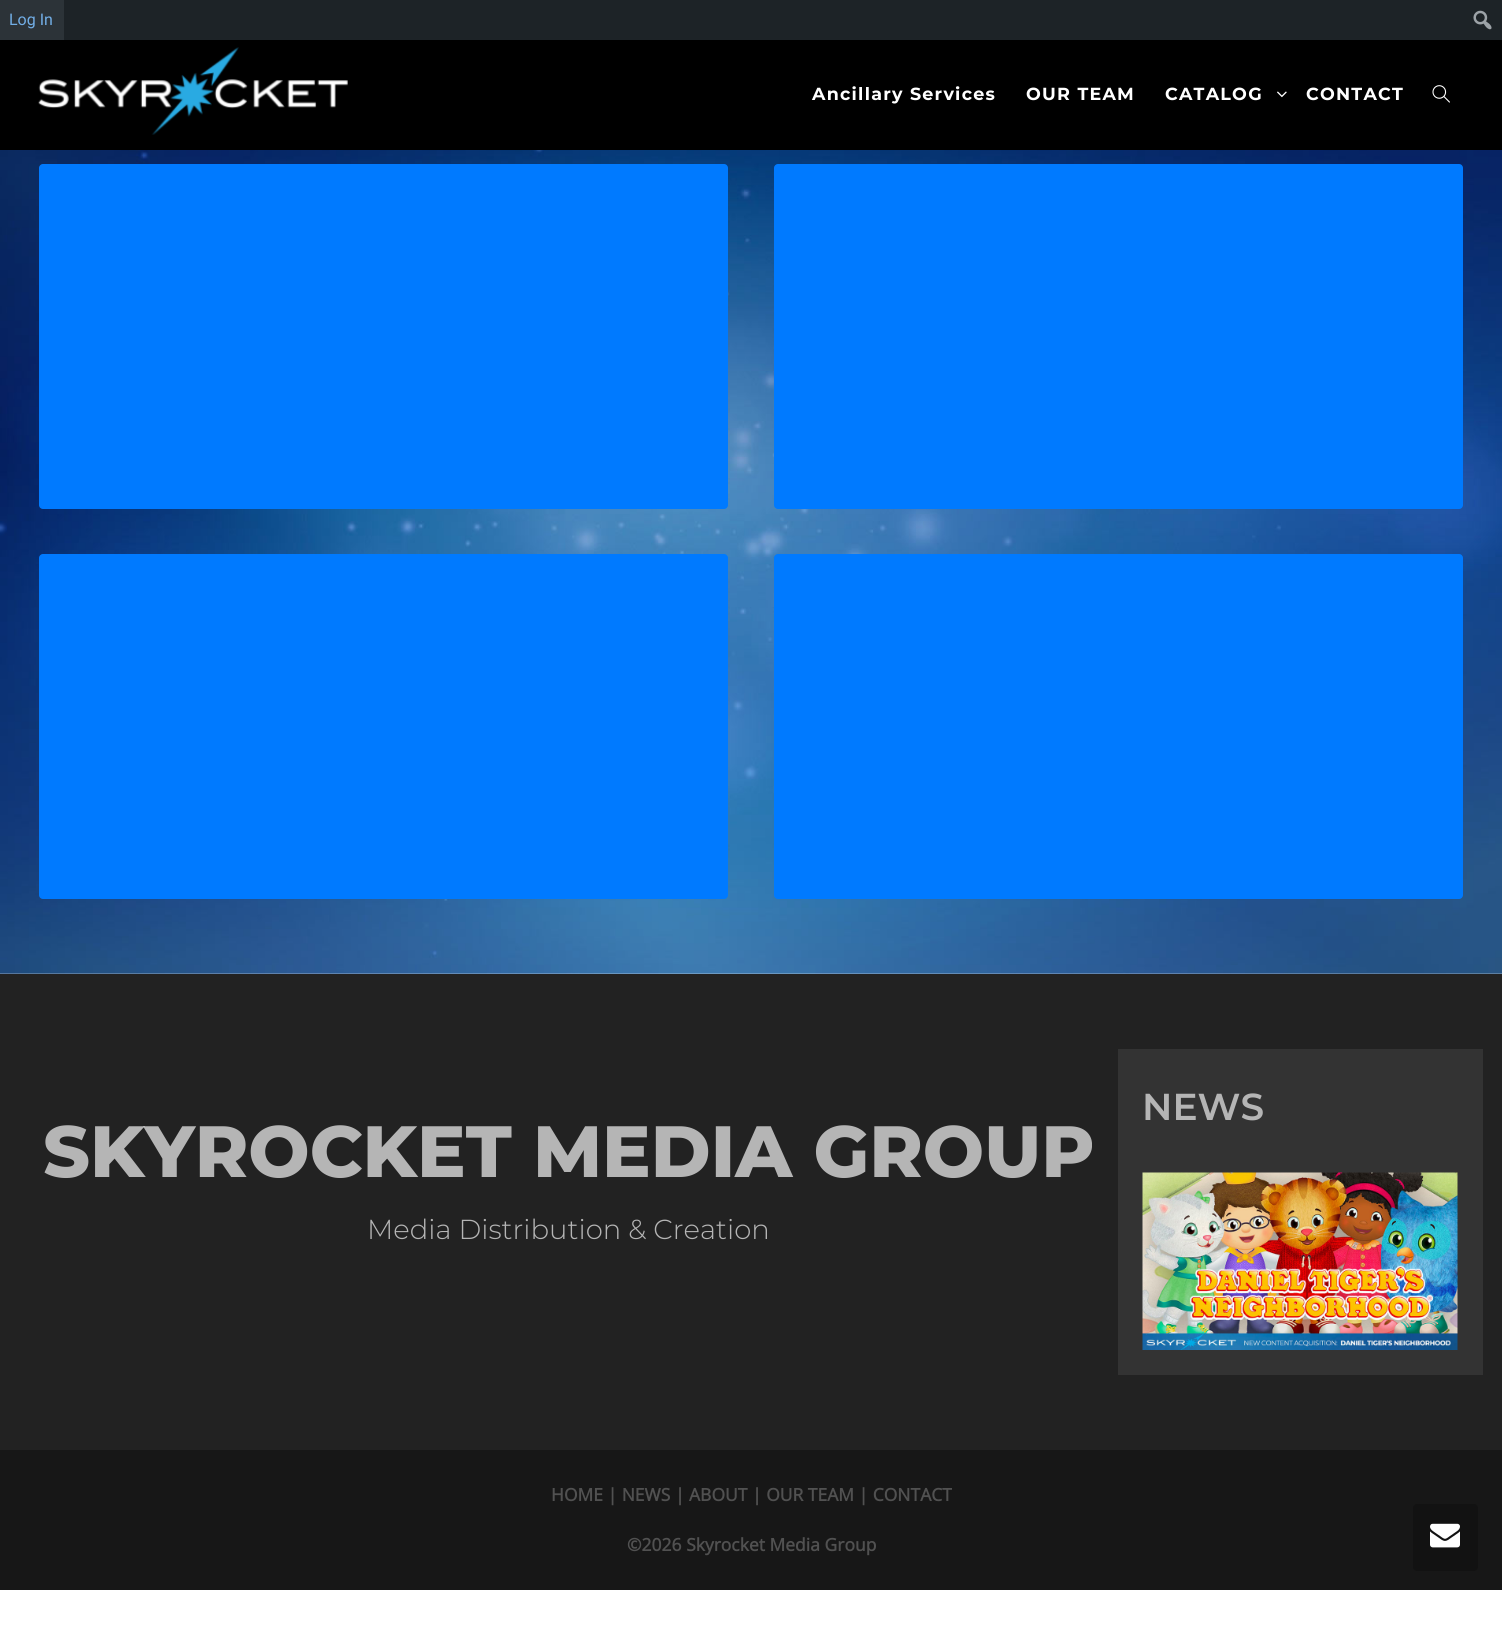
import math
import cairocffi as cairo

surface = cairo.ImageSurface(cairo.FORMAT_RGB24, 1502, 1633)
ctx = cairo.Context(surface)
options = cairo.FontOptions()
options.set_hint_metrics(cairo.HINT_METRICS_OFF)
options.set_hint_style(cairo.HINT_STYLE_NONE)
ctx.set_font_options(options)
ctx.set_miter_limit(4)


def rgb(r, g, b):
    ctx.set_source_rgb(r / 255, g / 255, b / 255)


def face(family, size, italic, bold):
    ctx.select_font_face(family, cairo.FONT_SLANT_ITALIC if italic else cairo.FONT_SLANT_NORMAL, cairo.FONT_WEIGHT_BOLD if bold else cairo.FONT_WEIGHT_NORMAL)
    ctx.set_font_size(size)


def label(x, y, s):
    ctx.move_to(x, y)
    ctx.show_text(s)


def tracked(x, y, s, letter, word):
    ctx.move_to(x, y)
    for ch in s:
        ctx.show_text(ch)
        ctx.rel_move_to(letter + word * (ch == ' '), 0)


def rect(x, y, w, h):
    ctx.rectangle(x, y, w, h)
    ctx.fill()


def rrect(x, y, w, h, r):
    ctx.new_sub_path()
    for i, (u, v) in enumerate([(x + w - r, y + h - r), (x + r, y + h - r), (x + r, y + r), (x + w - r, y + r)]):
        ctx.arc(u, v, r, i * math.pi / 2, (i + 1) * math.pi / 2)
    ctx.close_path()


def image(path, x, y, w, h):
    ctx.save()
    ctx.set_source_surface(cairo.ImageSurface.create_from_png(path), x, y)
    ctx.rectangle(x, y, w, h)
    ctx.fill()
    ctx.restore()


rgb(255, 255, 255)
ctx.paint()
rgb(29, 35, 39)
rect(64, 0, 1438, 40)
rgb(44, 51, 56)
rect(0, 0, 64, 40)
face('Roboto', 16, 0, 0)
rgb(114, 174, 230)
label(9, 25, 'Log In')
image('image0.png', 1473, 10, 19, 20)
rgb(0, 0, 0)
rect(0, 40, 1502, 110)
image('image1.png', 38, 47, 310, 88)
face('Montserrat', 17.5, 0, 1)
rgb(255, 255, 255)
tracked(812, 100, 'Ancillary Services', 1.25, 0)
tracked(1026, 100, 'OUR TEAM', 1.25, 0)
tracked(1165, 100, 'CATALOG', 1.25, 0)
image('image2.png', 1277, 91, 10, 7)
tracked(1306, 100, 'CONTACT', 1.25, 0)
image('image3.png', 1432, 85, 18, 18)
image('image4.png', 0, 150, 1502, 824)
rgb(0, 122, 255)
rrect(39, 164, 689, 345, 4)
ctx.fill()
rrect(774, 164, 689, 345, 4)
ctx.fill()
rrect(39, 554, 689, 345, 4)
ctx.fill()
rrect(774, 554, 689, 345, 4)
ctx.fill()
rgb(34, 34, 34)
rect(0, 974, 1502, 476)
rgb(51, 51, 51)
rect(1118, 1049, 365, 326)
face('Montserrat SemiBold', 37.5, 0, 0)
rgb(181, 181, 181)
label(1142, 1120, 'NEWS')
image('image5.png', 1142, 1172, 316, 178)
face('Montserrat ExtraBold', 72.5, 0, 0)
label(43, 1177, 'SKYROCKET MEDIA GROUP')
face('Montserrat Light', 27.5, 0, 0)
label(367, 1239, 'Media Distribution & Creation')
rgb(23, 23, 23)
rect(0, 1450, 1502, 140)
face('Open Sans', 17.5, 0, 1)
rgb(81, 81, 81)
label(551, 1501, 'HOME | NEWS | ABOUT | OUR TEAM | CONTACT')
label(627, 1551, '©2026 Skyrocket Media Group')
rgb(18, 18, 18)
rrect(1413, 1504, 65, 67, 4)
ctx.fill()
image('image6.png', 1430, 1523, 30, 25)
surface.write_to_png('render.png')
